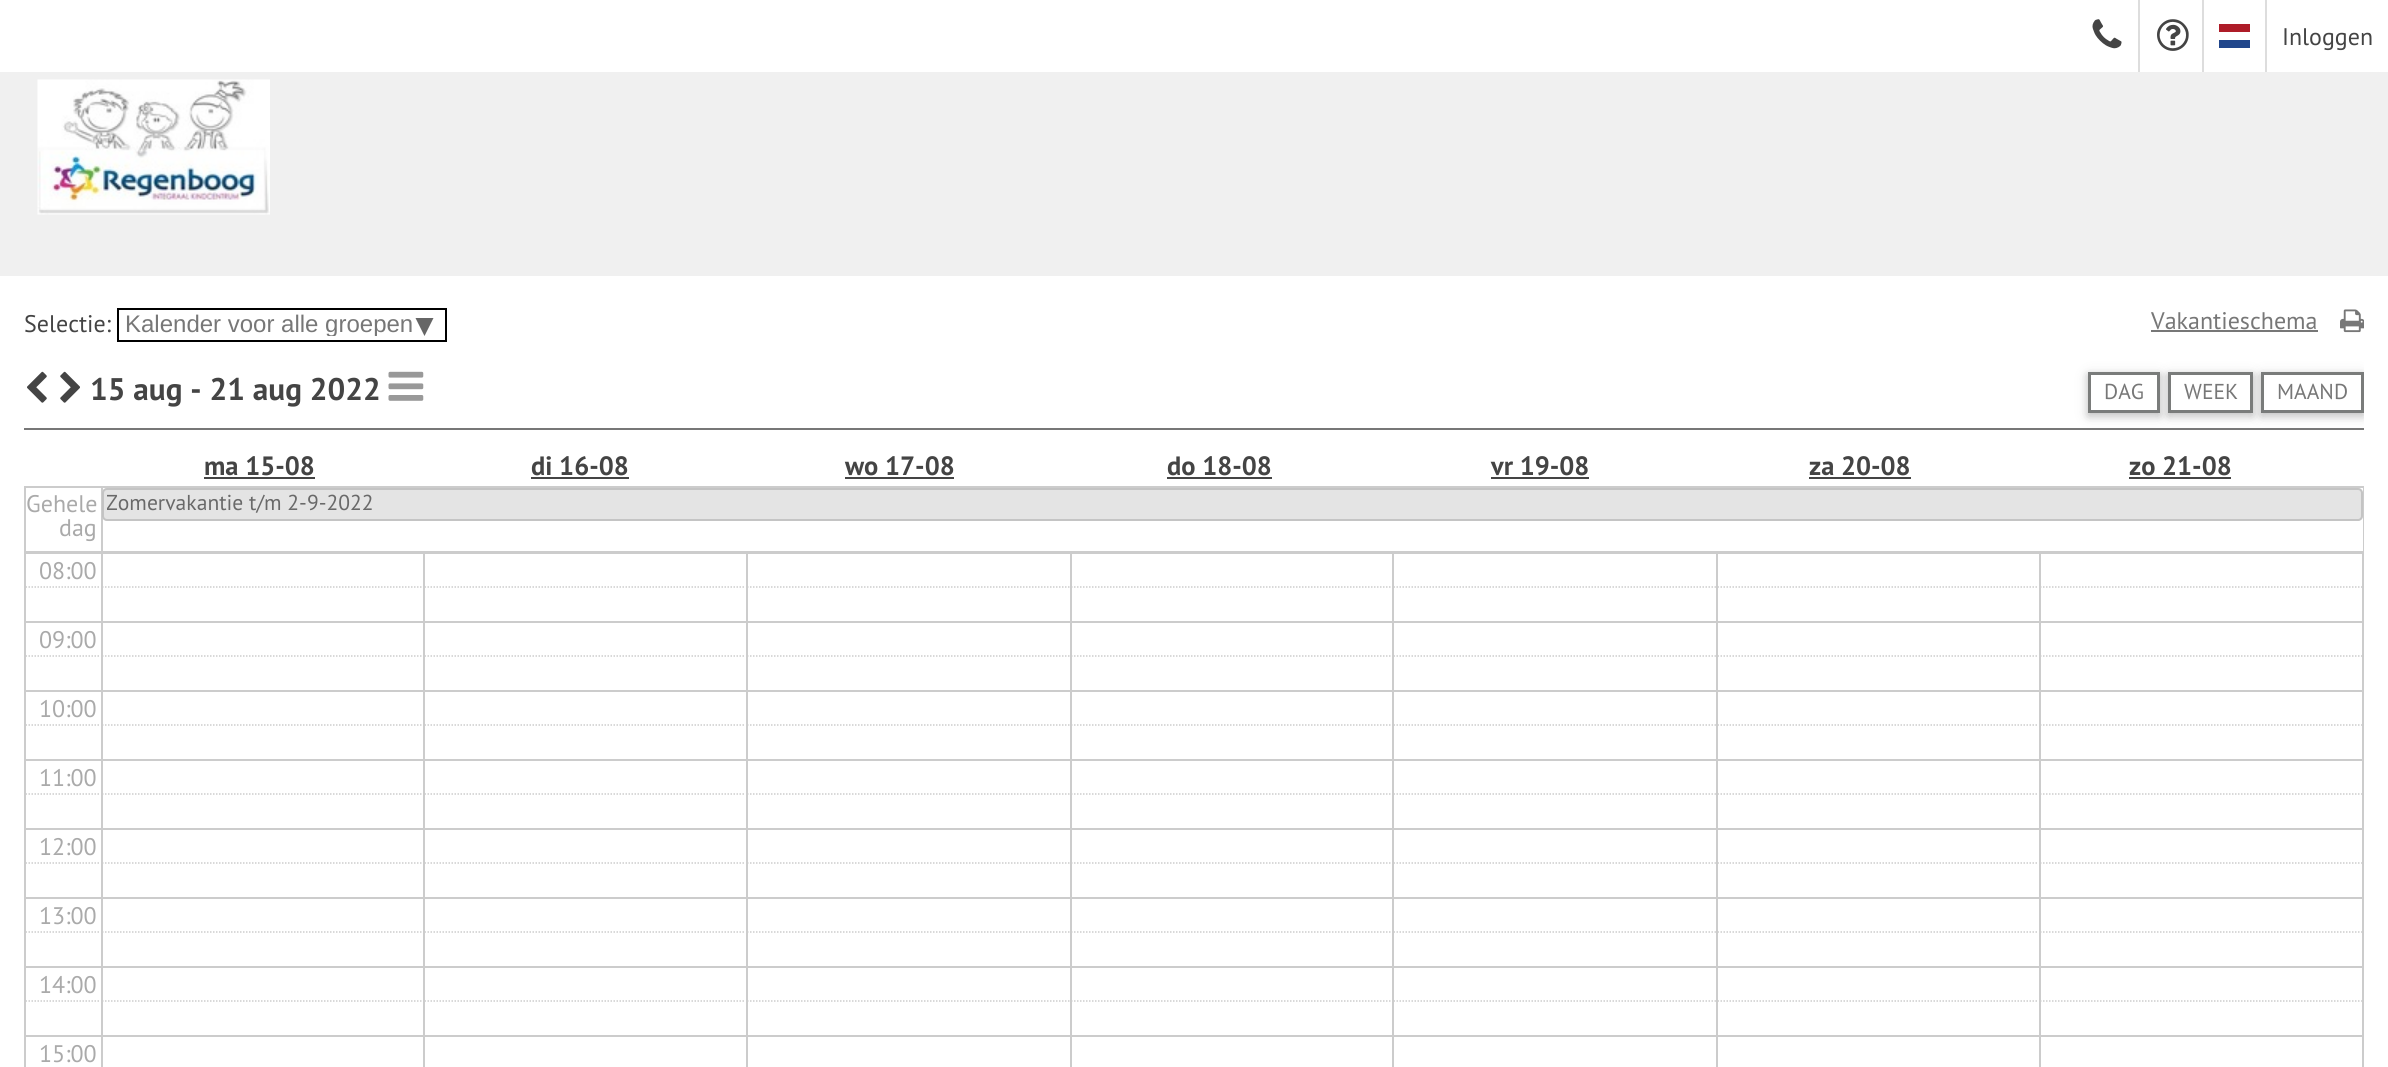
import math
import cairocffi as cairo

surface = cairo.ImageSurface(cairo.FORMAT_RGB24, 2388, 1067)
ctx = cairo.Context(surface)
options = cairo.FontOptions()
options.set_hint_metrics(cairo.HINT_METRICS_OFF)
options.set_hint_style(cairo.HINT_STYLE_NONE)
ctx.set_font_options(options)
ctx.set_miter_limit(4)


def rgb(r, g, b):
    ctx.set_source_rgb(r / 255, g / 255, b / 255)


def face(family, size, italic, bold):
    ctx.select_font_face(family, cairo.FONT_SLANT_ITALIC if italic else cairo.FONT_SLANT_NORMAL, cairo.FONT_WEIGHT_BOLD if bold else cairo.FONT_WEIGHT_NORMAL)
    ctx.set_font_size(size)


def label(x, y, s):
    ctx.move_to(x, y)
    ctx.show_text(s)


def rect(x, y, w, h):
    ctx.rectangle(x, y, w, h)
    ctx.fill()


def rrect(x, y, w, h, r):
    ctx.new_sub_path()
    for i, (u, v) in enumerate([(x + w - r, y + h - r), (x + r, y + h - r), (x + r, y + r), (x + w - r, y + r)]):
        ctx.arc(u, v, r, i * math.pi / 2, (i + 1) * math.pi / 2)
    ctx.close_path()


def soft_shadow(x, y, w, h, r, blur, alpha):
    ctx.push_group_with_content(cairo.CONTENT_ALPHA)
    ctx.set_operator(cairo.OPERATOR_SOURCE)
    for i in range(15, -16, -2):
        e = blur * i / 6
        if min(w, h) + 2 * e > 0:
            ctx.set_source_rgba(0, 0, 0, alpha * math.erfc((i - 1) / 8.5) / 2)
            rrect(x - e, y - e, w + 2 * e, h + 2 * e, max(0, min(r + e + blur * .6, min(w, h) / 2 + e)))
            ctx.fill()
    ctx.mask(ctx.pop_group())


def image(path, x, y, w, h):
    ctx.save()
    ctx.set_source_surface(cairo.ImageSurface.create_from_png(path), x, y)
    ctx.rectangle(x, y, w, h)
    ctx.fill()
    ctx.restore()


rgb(240, 240, 240)
ctx.paint()
rgb(255, 255, 255)
rect(0, 0, 2388, 72)
rgb(221, 221, 221)
rect(2138, 0, 2, 72)
image('image0.png', 2092, 19, 30, 30)
rect(2202, 0, 2, 72)
image('image1.png', 2157, 19, 32, 32)
rect(2265, 0, 2, 72)
rgb(33, 70, 139)
rect(2219, 40, 31, 8)
rgb(174, 28, 40)
rect(2219, 24, 31, 8)
face('PT Sans', 24, 0, 0)
rgb(68, 68, 68)
label(2282, 45, 'Inloggen')
image('image2.png', 37, 79, 233, 136)
rgb(255, 255, 255)
rect(0, 276, 2388, 791)
rgb(68, 68, 68)
label(24, 332, 'Selectie:')
ctx.rectangle(118, 309, 328, 32)
rgb(0, 0, 0)
ctx.stroke()
ctx.save()
ctx.rectangle(125, 311, 289, 25)
ctx.clip()
face('Liberation Sans', 24, 0, 0)
rgb(119, 119, 119)
label(125, 332, 'Kalender voor alle groepen')
ctx.restore()
rgb(102, 102, 102)
ctx.new_path()
ctx.move_to(415.5, 318)
ctx.line_to(433.5, 318)
ctx.line_to(424.5, 336)
ctx.close_path()
ctx.fill()
rgb(119, 119, 119)
label(2151, 329, 'Vakantieschema')
rect(2151, 330, 167, 2)
image('image3.png', 2340, 309, 24, 24)
rect(24, 428, 2340, 2)
image('image4.png', 27, 371, 20, 32)
image('image5.png', 60, 371, 20, 32)
face('PT Sans', 31.25, 0, 1)
rgb(68, 68, 68)
label(90, 400, '15 aug - 21 aug 2022')
image('image6.png', 388, 371, 36, 30)
ctx.save()
ctx.rectangle(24, 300, 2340, 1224)
ctx.clip()
rgb(0, 0, 0)
soft_shadow(2261, 375, 103, 41, 0, 7.5, 0.12)
soft_shadow(2261, 375, 103, 41, 0, 4, 0.16)
ctx.restore()
rgb(255, 255, 255)
ctx.rectangle(2262.5, 373.5, 100, 38)
ctx.fill_preserve()
rgb(122, 124, 123)
ctx.set_line_width(3)
ctx.stroke()
rgb(0, 0, 0)
soft_shadow(2168, 375, 85, 41, 0, 7.5, 0.12)
soft_shadow(2168, 375, 85, 41, 0, 4, 0.16)
rgb(255, 255, 255)
ctx.rectangle(2169.5, 373.5, 82, 38)
ctx.fill_preserve()
rgb(122, 124, 123)
ctx.stroke()
rgb(0, 0, 0)
soft_shadow(2088, 375, 72, 41, 0, 7.5, 0.12)
soft_shadow(2088, 375, 72, 41, 0, 4, 0.16)
rgb(255, 255, 255)
ctx.rectangle(2089.5, 373.5, 69, 38)
ctx.fill_preserve()
rgb(122, 124, 123)
ctx.stroke()
face('PT Sans', 21.6, 0, 0)
rgb(119, 119, 119)
label(2104, 399, 'DAG')
label(2184, 399, 'WEEK')
label(2277, 399, 'MAAND')
face('PT Sans', 26.5, 0, 1)
rgb(68, 68, 68)
label(204, 475, 'ma 15-08')
rect(204, 477, 111, 2)
label(531, 475, 'di 16-08')
rect(531, 477, 98, 2)
label(845, 475, 'wo 17-08')
rect(845, 477, 109, 2)
label(1167, 475, 'do 18-08')
rect(1167, 477, 105, 2)
label(1491, 475, 'vr 19-08')
rect(1491, 477, 98, 2)
label(1809, 475, 'za 20-08')
rect(1809, 477, 102, 2)
label(2129, 475, 'zo 21-08')
rect(2129, 477, 102, 2)
rgb(204, 204, 204)
rect(24, 486, 2340, 2)
rect(2363, 486, 1, 65)
rect(24, 486, 2, 65)
rect(101, 488, 2, 64)
face('PT Sans', 24, 0, 0)
rgb(170, 170, 170)
label(26, 512, 'Gehele')
label(59, 536, 'dag')
ctx.set_source_rgba(0.867, 0.867, 0.867, 0.8)
rrect(102, 488, 2261, 33, 5)
ctx.fill()
rrect(103, 489, 2259, 31, 4)
ctx.set_source_rgba(0.733, 0.733, 0.733, 0.8)
ctx.set_line_width(2)
ctx.stroke()
ctx.save()
ctx.rectangle(107, 492, 2251, 24)
ctx.clip()
face('PT Sans', 21.6, 0, 0)
rgb(105, 105, 105)
label(106, 510, 'Zomervakantie t/m 2-9-2022')
ctx.restore()
ctx.rectangle(25, 552, 2338, 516)
rgb(204, 204, 204)
ctx.stroke()
rect(101, 552, 2, 515)
rect(26, 553, 75, 1)
rgb(170, 170, 170)
label(39, 579, '08:00')
ctx.new_path()
ctx.move_to(25.5, 587)
ctx.line_to(100.5, 587)
rgb(204, 204, 204)
ctx.set_line_width(1.5)
ctx.set_dash([1.5, 1.5])
ctx.stroke()
rect(26, 621, 75, 2)
rgb(170, 170, 170)
label(39, 648, '09:00')
ctx.new_path()
ctx.move_to(25.5, 656)
ctx.line_to(100.5, 656)
rgb(204, 204, 204)
ctx.stroke()
rect(26, 690, 75, 2)
rgb(170, 170, 170)
label(39, 717, '10:00')
ctx.new_path()
ctx.move_to(25.5, 725)
ctx.line_to(100.5, 725)
rgb(204, 204, 204)
ctx.stroke()
rect(26, 759, 75, 2)
rgb(170, 170, 170)
label(39, 786, '11:00')
ctx.new_path()
ctx.move_to(25.5, 794)
ctx.line_to(100.5, 794)
rgb(204, 204, 204)
ctx.stroke()
rect(26, 828, 75, 2)
rgb(170, 170, 170)
label(39, 855, '12:00')
ctx.new_path()
ctx.move_to(25.5, 863)
ctx.line_to(100.5, 863)
rgb(204, 204, 204)
ctx.stroke()
rect(26, 897, 75, 2)
rgb(170, 170, 170)
label(39, 924, '13:00')
ctx.new_path()
ctx.move_to(25.5, 932)
ctx.line_to(100.5, 932)
rgb(204, 204, 204)
ctx.stroke()
rect(26, 966, 75, 2)
rgb(170, 170, 170)
label(39, 993, '14:00')
ctx.new_path()
ctx.move_to(25.5, 1001)
ctx.line_to(100.5, 1001)
rgb(204, 204, 204)
ctx.stroke()
rect(26, 1035, 75, 2)
rgb(170, 170, 170)
label(39, 1062, '15:00')
rgb(204, 204, 204)
rect(423, 552, 2, 515)
rect(102, 553, 321, 1)
ctx.new_path()
ctx.move_to(102, 587)
ctx.line_to(423, 587)
ctx.stroke()
rect(102, 621, 321, 2)
ctx.new_path()
ctx.move_to(102, 656)
ctx.line_to(423, 656)
ctx.stroke()
rect(102, 690, 321, 2)
ctx.new_path()
ctx.move_to(102, 725)
ctx.line_to(423, 725)
ctx.stroke()
rect(102, 759, 321, 2)
ctx.new_path()
ctx.move_to(102, 794)
ctx.line_to(423, 794)
ctx.stroke()
rect(102, 828, 321, 2)
ctx.new_path()
ctx.move_to(102, 863)
ctx.line_to(423, 863)
ctx.stroke()
rect(102, 897, 321, 2)
ctx.new_path()
ctx.move_to(102, 932)
ctx.line_to(423, 932)
ctx.stroke()
rect(102, 966, 321, 2)
ctx.new_path()
ctx.move_to(102, 1001)
ctx.line_to(423, 1001)
ctx.stroke()
rect(102, 1035, 321, 2)
rect(746, 552, 2, 515)
rect(425, 553, 321, 1)
ctx.new_path()
ctx.move_to(424.5, 587)
ctx.line_to(745.5, 587)
ctx.stroke()
rect(425, 621, 321, 2)
ctx.new_path()
ctx.move_to(424.5, 656)
ctx.line_to(745.5, 656)
ctx.stroke()
rect(425, 690, 321, 2)
ctx.new_path()
ctx.move_to(424.5, 725)
ctx.line_to(745.5, 725)
ctx.stroke()
rect(425, 759, 321, 2)
ctx.new_path()
ctx.move_to(424.5, 794)
ctx.line_to(745.5, 794)
ctx.stroke()
rect(425, 828, 321, 2)
ctx.new_path()
ctx.move_to(424.5, 863)
ctx.line_to(745.5, 863)
ctx.stroke()
rect(425, 897, 321, 2)
ctx.new_path()
ctx.move_to(424.5, 932)
ctx.line_to(745.5, 932)
ctx.stroke()
rect(425, 966, 321, 2)
ctx.new_path()
ctx.move_to(424.5, 1001)
ctx.line_to(745.5, 1001)
ctx.stroke()
rect(425, 1035, 321, 2)
rect(1070, 552, 2, 515)
rect(747, 553, 323, 1)
ctx.new_path()
ctx.move_to(747, 587)
ctx.line_to(1069.5, 587)
ctx.stroke()
rect(747, 621, 323, 2)
ctx.new_path()
ctx.move_to(747, 656)
ctx.line_to(1069.5, 656)
ctx.stroke()
rect(747, 690, 323, 2)
ctx.new_path()
ctx.move_to(747, 725)
ctx.line_to(1069.5, 725)
ctx.stroke()
rect(747, 759, 323, 2)
ctx.new_path()
ctx.move_to(747, 794)
ctx.line_to(1069.5, 794)
ctx.stroke()
rect(747, 828, 323, 2)
ctx.new_path()
ctx.move_to(747, 863)
ctx.line_to(1069.5, 863)
ctx.stroke()
rect(747, 897, 323, 2)
ctx.new_path()
ctx.move_to(747, 932)
ctx.line_to(1069.5, 932)
ctx.stroke()
rect(747, 966, 323, 2)
ctx.new_path()
ctx.move_to(747, 1001)
ctx.line_to(1069.5, 1001)
ctx.stroke()
rect(747, 1035, 323, 2)
rect(1392, 552, 2, 515)
rect(1071, 553, 321, 1)
ctx.new_path()
ctx.move_to(1071, 587)
ctx.line_to(1392, 587)
ctx.stroke()
rect(1071, 621, 321, 2)
ctx.new_path()
ctx.move_to(1071, 656)
ctx.line_to(1392, 656)
ctx.stroke()
rect(1071, 690, 321, 2)
ctx.new_path()
ctx.move_to(1071, 725)
ctx.line_to(1392, 725)
ctx.stroke()
rect(1071, 759, 321, 2)
ctx.new_path()
ctx.move_to(1071, 794)
ctx.line_to(1392, 794)
ctx.stroke()
rect(1071, 828, 321, 2)
ctx.new_path()
ctx.move_to(1071, 863)
ctx.line_to(1392, 863)
ctx.stroke()
rect(1071, 897, 321, 2)
ctx.new_path()
ctx.move_to(1071, 932)
ctx.line_to(1392, 932)
ctx.stroke()
rect(1071, 966, 321, 2)
ctx.new_path()
ctx.move_to(1071, 1001)
ctx.line_to(1392, 1001)
ctx.stroke()
rect(1071, 1035, 321, 2)
rect(1716, 552, 2, 515)
rect(1394, 553, 322, 1)
ctx.new_path()
ctx.move_to(1393.5, 587)
ctx.line_to(1716, 587)
ctx.stroke()
rect(1394, 621, 322, 2)
ctx.new_path()
ctx.move_to(1393.5, 656)
ctx.line_to(1716, 656)
ctx.stroke()
rect(1394, 690, 322, 2)
ctx.new_path()
ctx.move_to(1393.5, 725)
ctx.line_to(1716, 725)
ctx.stroke()
rect(1394, 759, 322, 2)
ctx.new_path()
ctx.move_to(1393.5, 794)
ctx.line_to(1716, 794)
ctx.stroke()
rect(1394, 828, 322, 2)
ctx.new_path()
ctx.move_to(1393.5, 863)
ctx.line_to(1716, 863)
ctx.stroke()
rect(1394, 897, 322, 2)
ctx.new_path()
ctx.move_to(1393.5, 932)
ctx.line_to(1716, 932)
ctx.stroke()
rect(1394, 966, 322, 2)
ctx.new_path()
ctx.move_to(1393.5, 1001)
ctx.line_to(1716, 1001)
ctx.stroke()
rect(1394, 1035, 322, 2)
rect(2039, 552, 2, 515)
rect(1718, 553, 321, 1)
ctx.new_path()
ctx.move_to(1717.5, 587)
ctx.line_to(2038.5, 587)
ctx.stroke()
rect(1718, 621, 321, 2)
ctx.new_path()
ctx.move_to(1717.5, 656)
ctx.line_to(2038.5, 656)
ctx.stroke()
rect(1718, 690, 321, 2)
ctx.new_path()
ctx.move_to(1717.5, 725)
ctx.line_to(2038.5, 725)
ctx.stroke()
rect(1718, 759, 321, 2)
ctx.new_path()
ctx.move_to(1717.5, 794)
ctx.line_to(2038.5, 794)
ctx.stroke()
rect(1718, 828, 321, 2)
ctx.new_path()
ctx.move_to(1717.5, 863)
ctx.line_to(2038.5, 863)
ctx.stroke()
rect(1718, 897, 321, 2)
ctx.new_path()
ctx.move_to(1717.5, 932)
ctx.line_to(2038.5, 932)
ctx.stroke()
rect(1718, 966, 321, 2)
ctx.new_path()
ctx.move_to(1717.5, 1001)
ctx.line_to(2038.5, 1001)
ctx.stroke()
rect(1718, 1035, 321, 2)
rect(2040, 553, 323, 1)
ctx.new_path()
ctx.move_to(2040, 587)
ctx.line_to(2362.5, 587)
ctx.stroke()
rect(2040, 621, 323, 2)
ctx.new_path()
ctx.move_to(2040, 656)
ctx.line_to(2362.5, 656)
ctx.stroke()
rect(2040, 690, 323, 2)
ctx.new_path()
ctx.move_to(2040, 725)
ctx.line_to(2362.5, 725)
ctx.stroke()
rect(2040, 759, 323, 2)
ctx.new_path()
ctx.move_to(2040, 794)
ctx.line_to(2362.5, 794)
ctx.stroke()
rect(2040, 828, 323, 2)
ctx.new_path()
ctx.move_to(2040, 863)
ctx.line_to(2362.5, 863)
ctx.stroke()
rect(2040, 897, 323, 2)
ctx.new_path()
ctx.move_to(2040, 932)
ctx.line_to(2362.5, 932)
ctx.stroke()
rect(2040, 966, 323, 2)
ctx.new_path()
ctx.move_to(2040, 1001)
ctx.line_to(2362.5, 1001)
ctx.stroke()
rect(2040, 1035, 323, 2)
surface.write_to_png('render.png')
